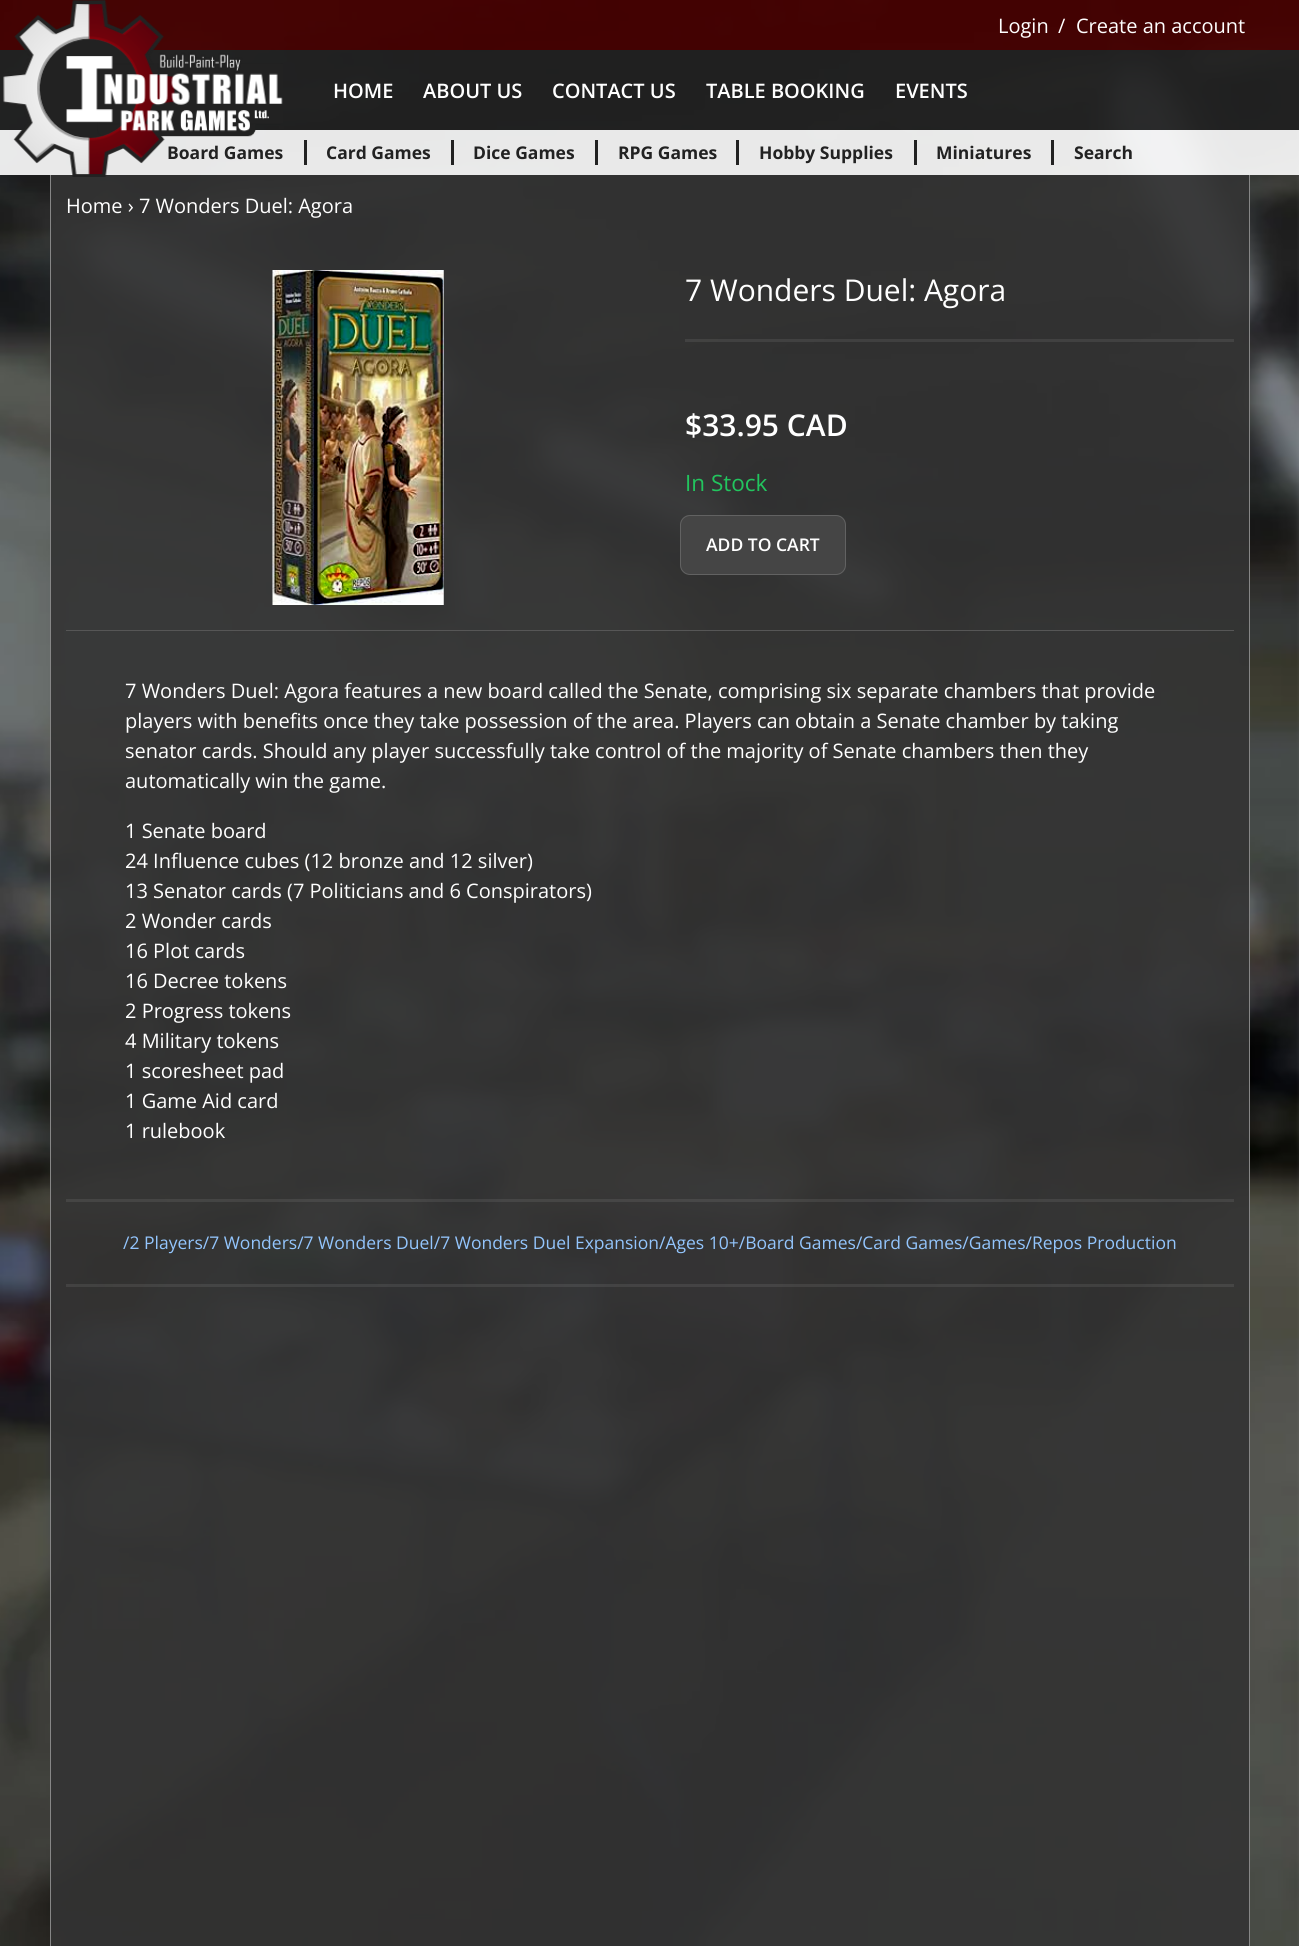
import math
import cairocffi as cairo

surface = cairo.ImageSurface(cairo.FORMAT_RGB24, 1299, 1946)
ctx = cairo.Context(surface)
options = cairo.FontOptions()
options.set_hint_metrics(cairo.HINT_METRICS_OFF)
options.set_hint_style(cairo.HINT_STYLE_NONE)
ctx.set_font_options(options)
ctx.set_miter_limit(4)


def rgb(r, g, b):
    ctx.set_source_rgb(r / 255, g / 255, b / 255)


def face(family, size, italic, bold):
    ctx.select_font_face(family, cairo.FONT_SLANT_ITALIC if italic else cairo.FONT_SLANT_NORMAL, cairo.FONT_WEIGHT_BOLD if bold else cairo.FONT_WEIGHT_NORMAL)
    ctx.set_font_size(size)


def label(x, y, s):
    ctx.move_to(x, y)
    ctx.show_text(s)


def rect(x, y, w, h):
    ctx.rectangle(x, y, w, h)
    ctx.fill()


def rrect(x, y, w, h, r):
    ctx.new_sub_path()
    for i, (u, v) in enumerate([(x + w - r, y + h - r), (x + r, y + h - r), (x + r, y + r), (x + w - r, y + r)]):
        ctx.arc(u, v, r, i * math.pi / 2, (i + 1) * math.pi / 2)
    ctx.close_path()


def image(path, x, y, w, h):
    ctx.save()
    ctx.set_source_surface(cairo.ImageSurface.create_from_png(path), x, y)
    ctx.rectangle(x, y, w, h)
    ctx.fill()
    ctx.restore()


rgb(255, 255, 255)
ctx.paint()
image('image0.png', 0, 0, 1299, 1946)
ctx.set_source_rgba(0.286, 0, 0, 0.9)
rect(0, 0, 1299, 50)
ctx.set_source_rgba(0.133, 0.133, 0.133, 0.9)
rect(0, 50, 1299, 80)
ctx.set_source_rgba(1, 1, 1, 0.9)
rect(0, 130, 1299, 45)
face('Open Sans', 17.5, 0, 1)
rgb(34, 34, 34)
label(167, 159, 'Board Games')
ctx.set_source_rgba(0.2, 0.2, 0.2, 0.9)
rect(51, 175, 1198, 1771)
rgb(134, 134, 134)
ctx.set_fill_rule(cairo.FILL_RULE_EVEN_ODD)
ctx.new_path()
ctx.move_to(50, 175)
ctx.line_to(1250, 175)
ctx.line_to(1250, 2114)
ctx.curve_to(1250, 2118, 1247, 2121, 1242, 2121)
ctx.line_to(58, 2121)
ctx.curve_to(53, 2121, 50, 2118, 50, 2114)
ctx.close_path()
ctx.move_to(51, 175)
ctx.line_to(1249, 175)
ctx.line_to(1249, 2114)
ctx.curve_to(1249, 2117, 1246, 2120, 1242, 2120)
ctx.line_to(58, 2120)
ctx.curve_to(54, 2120, 51, 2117, 51, 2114)
ctx.close_path()
ctx.fill()
image('image1.png', 3, 0, 280, 177)
face('Open Sans', 20, 0, 0)
rgb(255, 255, 255)
label(998, 33, 'Login')
label(1058, 33, '/')
label(1076, 33, 'Create an account')
face('Open Sans SemiBold', 20, 0, 0)
label(333, 98, 'HOME')
label(423, 98, 'ABOUT US')
label(552, 98, 'CONTACT US')
label(706, 98, 'TABLE BOOKING')
label(895, 98, 'EVENTS')
rgb(34, 34, 34)
rect(304, 140, 3, 25)
face('Open Sans', 17.5, 0, 1)
label(326, 159, 'Card Games')
rect(451, 140, 3, 25)
label(473, 159, 'Dice Games')
rect(595, 140, 3, 25)
label(618, 159, 'RPG Games')
rect(736, 140, 3, 25)
label(759, 159, 'Hobby Supplies')
rect(914, 140, 3, 25)
label(936, 159, 'Miniatures')
rect(1051, 140, 3, 25)
label(1074, 159, 'Search')
face('Open Sans', 20, 0, 0)
rgb(255, 255, 255)
label(66, 213, 'Home › 7 Wonders Duel: Agora')
image('image2.png', 272, 270, 172, 335)
face('Open Sans', 30, 0, 0)
label(685, 301, '7 Wonders Duel: Agora')
ctx.set_source_rgba(0.851, 0.851, 0.851, 0.1)
rect(685, 339, 549, 3)
face('Open Sans SemiBold', 30, 0, 0)
rgb(255, 255, 255)
label(685, 436, '$33.95 CAD')
face('Open Sans', 22.5, 0, 0)
rgb(34, 197, 94)
label(685, 491, 'In Stock')
rgb(69, 69, 69)
rrect(680, 515, 166, 60, 10)
ctx.fill()
rrect(680.5, 515.5, 165, 59, 9.5)
ctx.set_source_rgba(0.851, 0.851, 0.851, 0.2)
ctx.set_line_width(1)
ctx.stroke()
face('Open Sans SemiBold', 17.5, 0, 0)
rgb(255, 255, 255)
label(706, 551, 'ADD TO CART')
rgb(86, 86, 86)
rect(66, 630, 1168, 1)
face('Open Sans', 20, 0, 0)
rgb(255, 255, 255)
label(125, 698, '7 Wonders Duel: Agora features a new board called the Senate, comprising six separate chambers that provide')
label(125, 728, 'players with benefits once they take possession of the area. Players can obtain a Senate chamber by taking')
label(125, 758, 'senator cards. Should any player successfully take control of the majority of Senate chambers then they')
label(125, 788, 'automatically win the game.')
label(125, 838, '1 Senate board')
label(125, 868, '24 Influence cubes (12 bronze and 12 silver)')
label(125, 898, '13 Senator cards (7 Politicians and 6 Conspirators)')
label(125, 928, '2 Wonder cards')
label(125, 958, '16 Plot cards')
label(125, 988, '16 Decree tokens')
label(125, 1018, '2 Progress tokens')
label(125, 1048, '4 Military tokens')
label(125, 1078, '1 scoresheet pad')
label(125, 1108, '1 Game Aid card')
label(125, 1138, '1 rulebook')
ctx.set_source_rgba(0.851, 0.851, 0.851, 0.1)
rect(66, 1199, 584, 3)
rect(650, 1199, 584, 3)
face('Open Sans', 17.5, 0, 0)
rgb(147, 197, 253)
label(123, 1249, '/2 Players/7 Wonders/7 Wonders Duel/7 Wonders Duel Expansion/Ages 10+/Board Games/Card Games/Games/Repos Production')
ctx.set_source_rgba(0.851, 0.851, 0.851, 0.1)
rect(66, 1284, 584, 3)
rect(650, 1284, 584, 3)
surface.write_to_png('render.png')
